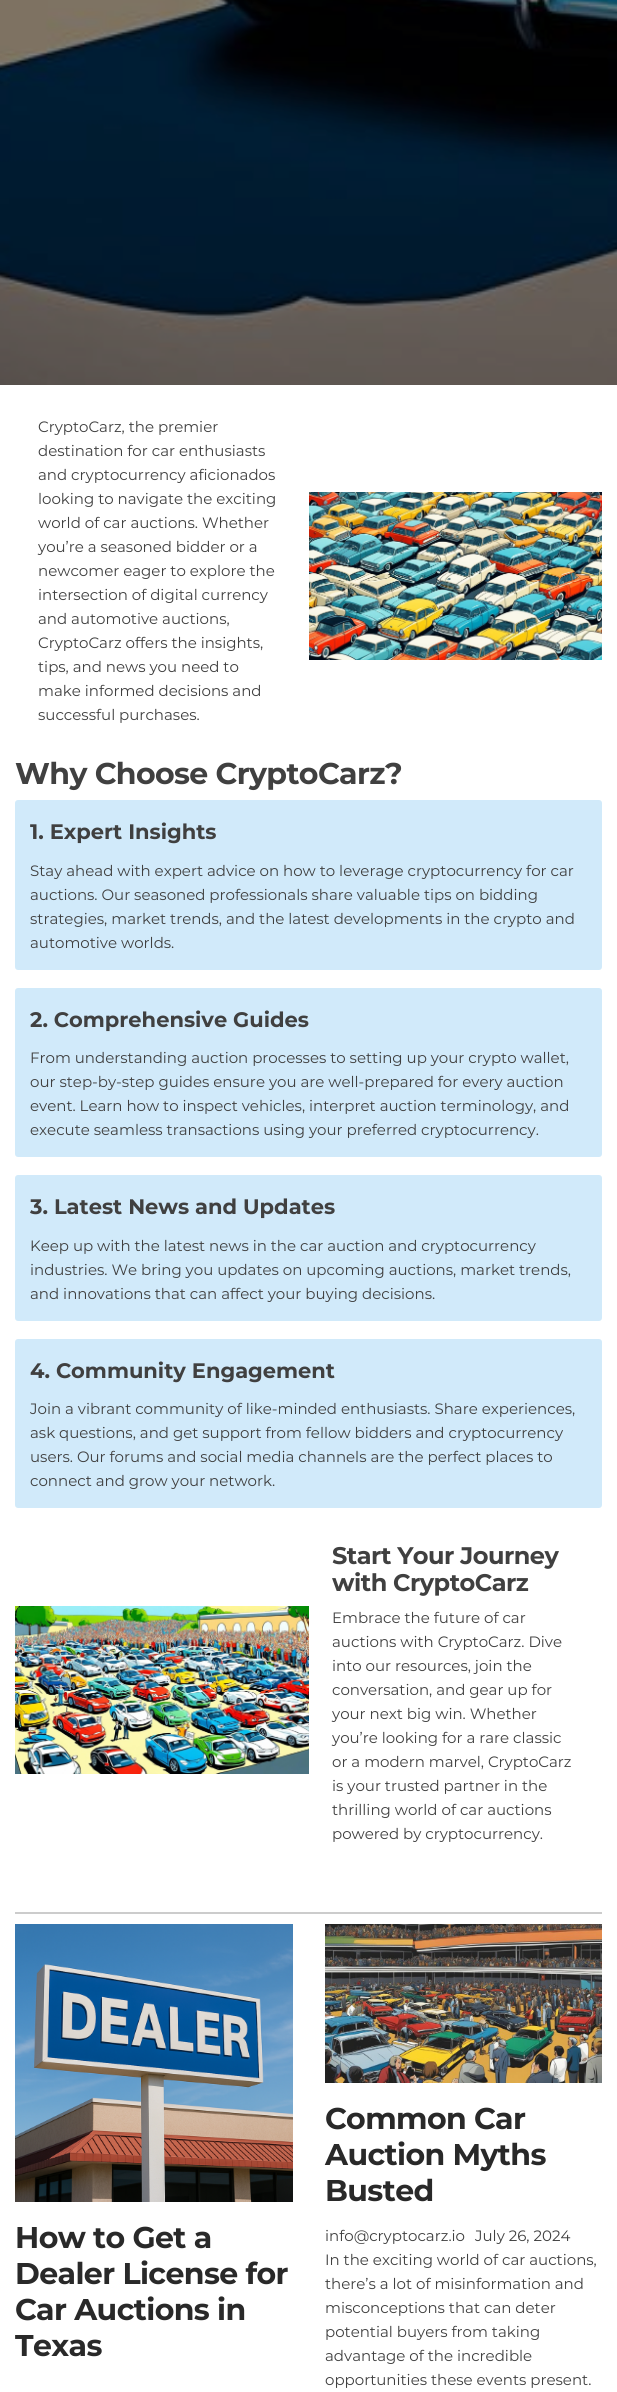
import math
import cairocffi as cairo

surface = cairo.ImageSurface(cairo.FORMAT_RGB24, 617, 2392)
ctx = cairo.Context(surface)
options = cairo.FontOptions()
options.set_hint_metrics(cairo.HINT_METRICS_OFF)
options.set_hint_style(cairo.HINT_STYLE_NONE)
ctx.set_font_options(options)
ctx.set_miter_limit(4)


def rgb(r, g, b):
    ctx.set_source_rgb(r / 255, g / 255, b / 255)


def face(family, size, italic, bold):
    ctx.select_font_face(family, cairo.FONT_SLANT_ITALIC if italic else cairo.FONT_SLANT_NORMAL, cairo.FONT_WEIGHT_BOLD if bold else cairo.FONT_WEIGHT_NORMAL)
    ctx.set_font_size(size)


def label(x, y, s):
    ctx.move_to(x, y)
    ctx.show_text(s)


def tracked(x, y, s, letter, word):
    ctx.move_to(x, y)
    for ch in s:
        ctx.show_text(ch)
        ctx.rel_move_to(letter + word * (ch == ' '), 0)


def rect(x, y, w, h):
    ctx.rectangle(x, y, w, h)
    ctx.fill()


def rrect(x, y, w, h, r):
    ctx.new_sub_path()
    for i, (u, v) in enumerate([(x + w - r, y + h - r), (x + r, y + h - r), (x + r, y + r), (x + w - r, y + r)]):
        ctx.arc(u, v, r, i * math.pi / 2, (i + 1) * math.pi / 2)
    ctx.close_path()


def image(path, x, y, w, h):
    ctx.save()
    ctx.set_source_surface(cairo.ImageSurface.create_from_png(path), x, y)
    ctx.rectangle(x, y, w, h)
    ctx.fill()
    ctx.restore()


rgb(255, 255, 255)
ctx.paint()
image('image0.png', 0, 0, 617, 385)
face('Montserrat', 15, 0, 0)
rgb(64, 64, 64)
label(38, 432, 'CryptoCarz, the premier')
label(38, 456, 'destination for car enthusiasts')
label(38, 480, 'and cryptocurrency aficionados')
label(38, 504, 'looking to navigate the exciting')
label(38, 528, 'world of car auctions. Whether')
label(38, 552, 'you’re a seasoned bidder or a')
label(38, 576, 'newcomer eager to explore the')
label(38, 600, 'intersection of digital currency')
label(38, 624, 'and automotive auctions,')
label(38, 648, 'CryptoCarz offers the insights,')
label(38, 672, 'tips, and news you need to')
label(38, 696, 'make informed decisions and')
label(38, 720, 'successful purchases.')
image('image1.png', 309, 492, 293, 168)
face('Montserrat', 30, 0, 1)
tracked(15, 784, 'Why Choose CryptoCarz?', -0.6, 0)
rgb(209, 234, 250)
rrect(15, 800, 587, 170, 3)
ctx.fill()
face('Montserrat', 21, 0, 1)
rgb(64, 64, 64)
label(30, 839, '1. Expert Insights')
face('Montserrat', 15, 0, 0)
label(30, 876, 'Stay ahead with expert advice on how to leverage cryptocurrency for car')
label(30, 900, 'auctions. Our seasoned professionals share valuable tips on bidding')
label(30, 924, 'strategies, market trends, and the latest developments in the crypto and')
label(30, 948, 'automotive worlds.')
rgb(209, 234, 250)
rrect(15, 988, 587, 169, 3)
ctx.fill()
face('Montserrat', 21, 0, 1)
rgb(64, 64, 64)
label(30, 1027, '2. Comprehensive Guides')
face('Montserrat', 15, 0, 0)
label(30, 1063, 'From understanding auction processes to setting up your crypto wallet,')
label(30, 1087, 'our step-by-step guides ensure you are well-prepared for every auction')
label(30, 1111, 'event. Learn how to inspect vehicles, interpret auction terminology, and')
label(30, 1135, 'execute seamless transactions using your preferred cryptocurrency.')
rgb(209, 234, 250)
rrect(15, 1175, 587, 146, 3)
ctx.fill()
face('Montserrat', 21, 0, 1)
rgb(64, 64, 64)
label(30, 1214, '3. Latest News and Updates')
face('Montserrat', 15, 0, 0)
label(30, 1251, 'Keep up with the latest news in the car auction and cryptocurrency')
label(30, 1275, 'industries. We bring you updates on upcoming auctions, market trends,')
label(30, 1299, 'and innovations that can affect your buying decisions.')
rgb(209, 234, 250)
rrect(15, 1339, 587, 169, 3)
ctx.fill()
face('Montserrat', 21, 0, 1)
rgb(64, 64, 64)
label(30, 1378, '4. Community Engagement')
face('Montserrat', 15, 0, 0)
label(30, 1414, 'Join a vibrant community of like-minded enthusiasts. Share experiences,')
label(30, 1438, 'ask questions, and get support from fellow bidders and cryptocurrency')
label(30, 1462, 'users. Our forums and social media channels are the perfect places to')
label(30, 1486, 'connect and grow your network.')
image('image2.png', 15, 1606, 294, 168)
face('Montserrat', 24, 0, 1)
tracked(332, 1564, 'Start Your Journey', -0.5, 0)
tracked(332, 1591, 'with CryptoCarz', -0.5, 0)
face('Montserrat', 15, 0, 0)
label(332, 1623, 'Embrace the future of car')
label(332, 1647, 'auctions with CryptoCarz. Dive')
label(332, 1671, 'into our resources, join the')
label(332, 1695, 'conversation, and gear up for')
label(332, 1719, 'your next big win. Whether')
label(332, 1743, 'you’re looking for a rare classic')
label(332, 1767, 'or a modern marvel, CryptoCarz')
label(332, 1791, 'is your trusted partner in the')
label(332, 1815, 'thrilling world of car auctions')
label(332, 1839, 'powered by cryptocurrency.')
rgb(204, 204, 204)
rect(15, 1912, 587, 2)
image('image3.png', 15, 1924, 278, 278)
face('Montserrat', 30, 0, 1)
rgb(41, 41, 41)
tracked(15, 2248, 'How to Get a', -0.6, 0)
tracked(15, 2284, 'Dealer License for', -0.6, 0)
tracked(15, 2320, 'Car Auctions in', -0.6, 0)
tracked(15, 2356, 'Texas', -0.6, 0)
image('image4.png', 325, 1924, 277, 159)
tracked(325, 2129, 'Common Car', -0.6, 0)
tracked(325, 2165, 'Auction Myths', -0.6, 0)
tracked(325, 2201, 'Busted', -0.6, 0)
face('Montserrat', 15, 0, 0)
rgb(64, 64, 64)
label(325, 2241, 'info@cryptocarz.io')
label(475, 2241, 'July 26, 2024')
label(325, 2265, 'In the exciting world of car auctions,')
label(325, 2289, 'there’s a lot of misinformation and')
label(325, 2313, 'misconceptions that can deter')
label(325, 2337, 'potential buyers from taking')
label(325, 2361, 'advantage of the incredible')
label(325, 2385, 'opportunities these events present.')
surface.write_to_png('render.png')
